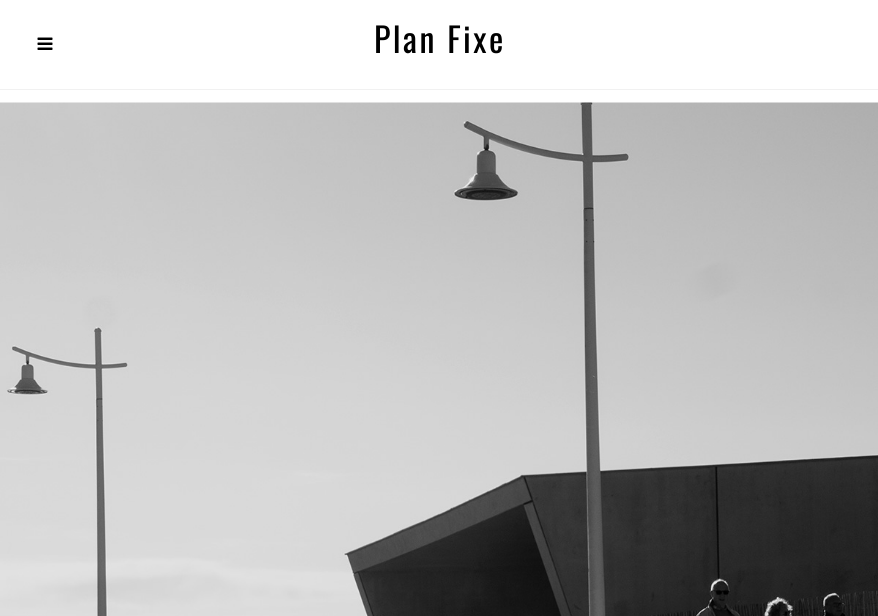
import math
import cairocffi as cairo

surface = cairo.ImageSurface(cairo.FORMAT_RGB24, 878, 616)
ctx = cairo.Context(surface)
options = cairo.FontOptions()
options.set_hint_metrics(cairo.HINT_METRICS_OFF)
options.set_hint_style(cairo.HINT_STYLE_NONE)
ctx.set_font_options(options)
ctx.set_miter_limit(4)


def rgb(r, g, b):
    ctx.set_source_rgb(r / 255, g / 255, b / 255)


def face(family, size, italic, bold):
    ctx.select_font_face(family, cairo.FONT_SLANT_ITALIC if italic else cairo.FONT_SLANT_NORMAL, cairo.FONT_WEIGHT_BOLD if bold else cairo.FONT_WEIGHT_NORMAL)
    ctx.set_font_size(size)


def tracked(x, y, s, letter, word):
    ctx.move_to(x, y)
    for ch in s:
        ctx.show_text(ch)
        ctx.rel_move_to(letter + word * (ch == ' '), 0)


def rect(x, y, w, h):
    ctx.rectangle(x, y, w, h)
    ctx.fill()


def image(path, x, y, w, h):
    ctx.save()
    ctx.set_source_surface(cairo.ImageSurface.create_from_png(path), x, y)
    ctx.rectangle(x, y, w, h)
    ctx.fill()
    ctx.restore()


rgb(255, 255, 255)
ctx.paint()
rgb(241, 241, 241)
rect(0, 89, 878, 1)
image('image0.png', 37, 37, 16, 13)
face('Oswald', 34, 0, 0)
rgb(0, 0, 0)
tracked(374, 53, 'Plan Fixe', 2.5, 0)
image('image1.png', 0, 102, 878, 514)
surface.write_to_png('render.png')
